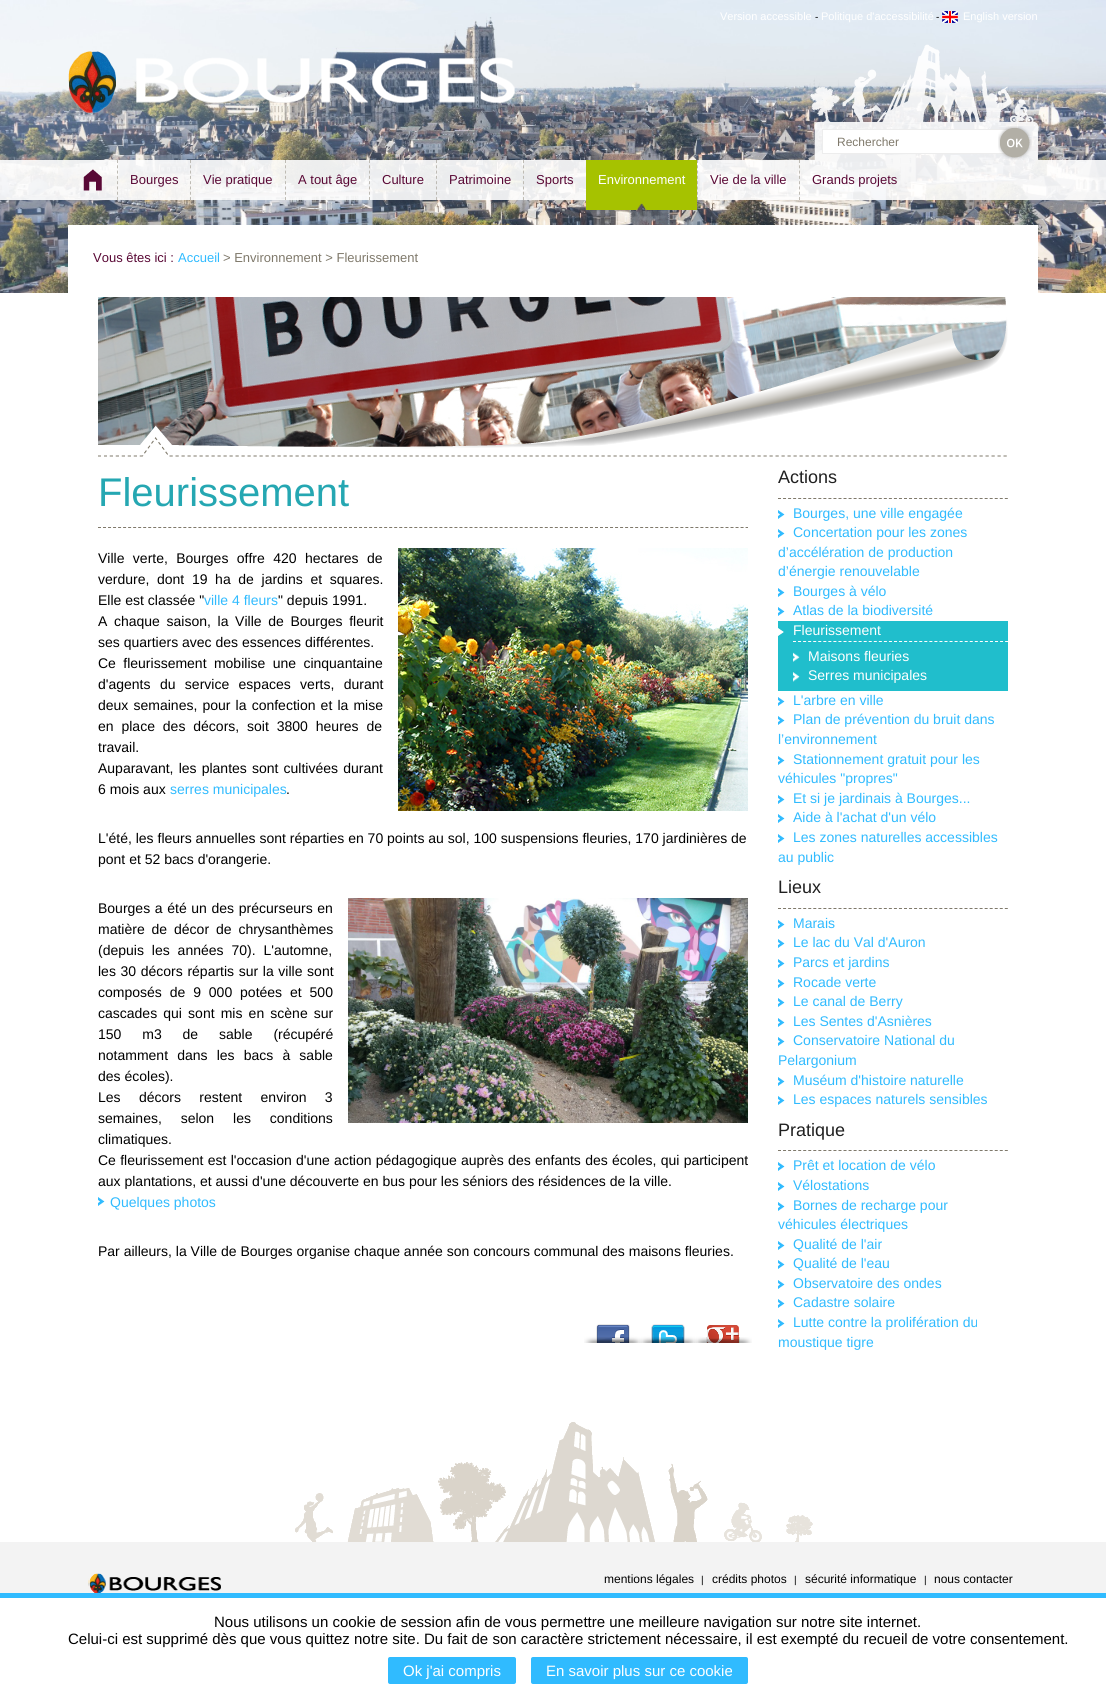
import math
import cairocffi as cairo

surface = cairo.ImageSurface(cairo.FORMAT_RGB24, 1106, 1694)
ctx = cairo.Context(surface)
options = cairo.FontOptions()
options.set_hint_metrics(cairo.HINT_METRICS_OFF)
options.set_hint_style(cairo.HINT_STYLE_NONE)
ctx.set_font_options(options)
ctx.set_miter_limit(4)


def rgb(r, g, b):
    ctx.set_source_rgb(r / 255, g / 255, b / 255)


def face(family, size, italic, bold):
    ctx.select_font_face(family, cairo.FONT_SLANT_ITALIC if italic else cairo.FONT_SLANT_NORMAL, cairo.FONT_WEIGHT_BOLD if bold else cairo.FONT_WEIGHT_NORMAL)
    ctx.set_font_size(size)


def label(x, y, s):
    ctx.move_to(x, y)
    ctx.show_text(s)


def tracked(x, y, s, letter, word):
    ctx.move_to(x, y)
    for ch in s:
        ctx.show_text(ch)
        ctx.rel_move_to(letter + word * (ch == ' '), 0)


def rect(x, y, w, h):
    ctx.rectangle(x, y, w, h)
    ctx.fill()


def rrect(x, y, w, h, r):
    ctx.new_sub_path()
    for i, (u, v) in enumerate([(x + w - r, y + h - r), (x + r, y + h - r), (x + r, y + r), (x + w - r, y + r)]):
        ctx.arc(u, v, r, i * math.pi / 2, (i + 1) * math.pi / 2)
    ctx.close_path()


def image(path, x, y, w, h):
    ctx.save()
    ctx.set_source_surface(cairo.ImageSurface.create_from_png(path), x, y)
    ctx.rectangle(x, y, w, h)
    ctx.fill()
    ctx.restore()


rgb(255, 255, 255)
ctx.paint()
image('image0.png', 0, 0, 1106, 293)
face('Liberation Sans', 11, 0, 0)
rgb(255, 255, 255)
label(720, 20, 'Version accessible')
face('Liberation Sans', 10, 0, 0)
rgb(0, 0, 0)
label(815, 20, '-')
face('Liberation Sans', 11, 0, 0)
rgb(255, 255, 255)
label(821, 20, 'Politique d\'accessibilité')
face('Liberation Sans', 10, 0, 0)
rgb(0, 0, 0)
label(936, 20, '-')
image('image1.png', 942, 11, 16, 12)
face('Liberation Sans', 11, 0, 0)
rgb(255, 255, 255)
label(963, 20, 'English version')
image('image2.png', 68, 51, 48, 62)
image('image3.png', 136, 57, 379, 46)
image('image4.png', 810, 44, 228, 116)
face('Liberation Sans', 12, 0, 0)
rgb(127, 121, 107)
label(837, 146, 'Rechercher')
image('image5.png', 998, 126, 34, 34)
ctx.set_source_rgba(1, 1, 1, 0.9)
rect(0, 160, 1106, 40)
image('image6.png', 83, 169, 19, 22)
ctx.new_path()
ctx.move_to(117.5, 160)
ctx.line_to(117.5, 200)
rgb(190, 187, 180)
ctx.set_line_width(1)
ctx.set_dash([3, 2.29])
ctx.stroke()
face('Liberation Sans', 13, 0, 0)
rgb(89, 8, 53)
label(130, 184, 'Bourges')
ctx.new_path()
ctx.move_to(190.5, 160)
ctx.line_to(190.5, 200)
rgb(190, 187, 180)
ctx.stroke()
rgb(89, 8, 53)
label(203, 184, 'Vie pratique')
ctx.new_path()
ctx.move_to(285.5, 160)
ctx.line_to(285.5, 200)
rgb(190, 187, 180)
ctx.stroke()
rgb(89, 8, 53)
label(298, 184, 'A tout âge')
ctx.new_path()
ctx.move_to(369.5, 160)
ctx.line_to(369.5, 200)
rgb(190, 187, 180)
ctx.stroke()
rgb(89, 8, 53)
label(382, 184, 'Culture')
ctx.new_path()
ctx.move_to(436.5, 160)
ctx.line_to(436.5, 200)
rgb(190, 187, 180)
ctx.stroke()
rgb(89, 8, 53)
label(449, 184, 'Patrimoine')
ctx.new_path()
ctx.move_to(523.5, 160)
ctx.line_to(523.5, 200)
rgb(190, 187, 180)
ctx.stroke()
rgb(89, 8, 53)
label(536, 184, 'Sports')
image('image7.png', 586, 160, 111, 50)
rgb(255, 255, 255)
label(598, 184, 'Environnement')
ctx.new_path()
ctx.move_to(697.5, 160)
ctx.line_to(697.5, 200)
rgb(190, 187, 180)
ctx.stroke()
rgb(89, 8, 53)
label(710, 184, 'Vie de la ville')
ctx.new_path()
ctx.move_to(799.5, 160)
ctx.line_to(799.5, 200)
rgb(190, 187, 180)
ctx.stroke()
rgb(89, 8, 53)
label(812, 184, 'Grands projets')
rgb(255, 255, 255)
rect(68, 225, 970, 68)
rgb(89, 8, 53)
label(93, 262, 'Vous êtes ici :')
rgb(48, 187, 255)
label(178, 262, 'Accueil')
rgb(127, 121, 107)
label(223, 262, '> Environnement > Fleurissement')
image('image8.png', 98, 297, 910, 160)
ctx.new_path()
ctx.move_to(98, 527.5)
ctx.line_to(748, 527.5)
ctx.set_dash([3, 2.02])
ctx.stroke()
face('Liberation Sans', 40, 0, 0)
rgb(37, 167, 178)
label(98, 506, 'Fleurissement')
face('Liberation Sans', 14, 0, 0)
rgb(0, 0, 0)
tracked(98, 563, 'Ville verte, Bourges offre 420 hectares de', 0, 4.5)
image('image9.png', 398, 548, 350, 263)
tracked(98, 584, 'verdure, dont 19 ha de jardins et squares.', 0, 3.75)
label(98, 605, 'Elle est classée "')
rgb(48, 187, 255)
label(204, 605, 'ville 4 fleurs')
rgb(0, 0, 0)
label(278, 605, '" depuis 1991.')
tracked(98, 626, 'A chaque saison, la Ville de Bourges fleurit', 0, 2.75)
label(98, 647, 'ses quartiers avec des essences différentes.')
tracked(98, 668, 'Ce fleurissement mobilise une cinquantaine', 0, 3.5)
tracked(98, 689, 'd\'agents du service espaces verts, durant', 0, 5.5)
tracked(98, 710, 'deux semaines, pour la confection et la mise', 0, 1.25)
tracked(98, 731, 'en place des décors, soit 3800 heures de', 0, 4)
label(98, 752, 'travail.')
tracked(98, 773, 'Auparavant, les plantes sont cultivées durant', 0, 1.25)
label(98, 794, '6 mois aux')
rgb(48, 187, 255)
label(170, 794, 'serres municipales')
rgb(0, 0, 0)
label(286, 794, '.')
label(98, 843, 'L\'été, les fleurs annuelles sont réparties en 70 points au sol, 100 suspensions fleuries, 170 jardinières de')
label(98, 864, 'pont et 52 bacs d\'orangerie.')
tracked(98, 913, 'Bourges a été un des précurseurs en', 0, 0.75)
image('image10.png', 348, 898, 400, 225)
tracked(98, 934, 'matière de décor de chrysanthèmes', 0, 3)
tracked(98, 955, '(depuis les années 70). L\'automne,', 0, 4)
tracked(98, 976, 'les 30 décors répartis sur la ville sont', 0, 0.75)
tracked(98, 997, 'composés de 9 000 potées et 500', 0, 4)
tracked(98, 1018, 'cascades qui sont mis en scène sur', 0, 2.25)
tracked(98, 1039, '150 m3 de sable (récupéré', 0, 17)
tracked(98, 1060, 'notamment dans les bacs à sable', 0, 5.25)
label(98, 1081, 'des écoles).')
tracked(98, 1102, 'Les décors restent environ 3', 0, 14.5)
tracked(98, 1123, 'semaines, selon les conditions', 0, 15)
label(98, 1144, 'climatiques.')
tracked(98, 1165, 'Ce fleurissement est l\'occasion d\'une action pédagogique auprès des enfants des écoles, qui participent', 0, 0.4)
label(98, 1186, 'aux plantations, et aussi d\'une découverte en bus pour les séniors des résidences de la ville.')
image('image11.png', 98, 1197, 7, 9)
rgb(48, 187, 255)
label(110, 1207, 'Quelques photos')
rgb(0, 0, 0)
label(98, 1256, 'Par ailleurs, la Ville de Bourges organise chaque année son concours communal des maisons fleuries.')
image('image12.png', 584, 1324, 58, 19)
image('image13.png', 639, 1324, 58, 19)
image('image14.png', 694, 1325, 58, 18)
ctx.new_path()
ctx.move_to(778, 498.5)
ctx.line_to(1008, 498.5)
rgb(127, 121, 107)
ctx.set_dash([3, 2.04])
ctx.stroke()
face('Liberation Sans', 18, 0, 0)
rgb(32, 32, 32)
label(778, 483, 'Actions')
image('image11.png', 778, 510, 7, 9)
face('Liberation Sans', 14, 0, 0)
rgb(48, 187, 255)
label(793, 518, 'Bourges, une ville engagée')
image('image11.png', 778, 529, 7, 9)
label(793, 537, 'Concertation pour les zones')
label(778, 557, 'd’accélération de production')
label(778, 576, 'd’énergie renouvelable')
image('image11.png', 778, 588, 7, 9)
label(793, 596, 'Bourges à vélo')
image('image11.png', 778, 607, 7, 9)
label(793, 615, 'Atlas de la biodiversité')
rgb(32, 190, 204)
rect(778, 621, 230, 70)
image('image15.png', 778, 628, 6, 8)
rgb(255, 255, 255)
label(793, 635, 'Fleurissement')
ctx.new_path()
ctx.move_to(793, 641.5)
ctx.line_to(1008, 641.5)
ctx.set_dash([3, 2.05])
ctx.stroke()
image('image16.png', 793, 652, 7, 10)
label(808, 661, 'Maisons fleuries')
image('image17.png', 793, 672, 7, 10)
label(808, 680, 'Serres municipales')
image('image11.png', 778, 697, 7, 9)
rgb(48, 187, 255)
label(793, 705, 'L\'arbre en ville')
image('image11.png', 778, 716, 7, 9)
label(793, 724, 'Plan de prévention du bruit dans')
label(778, 744, 'l’environnement')
image('image11.png', 778, 756, 7, 9)
label(793, 764, 'Stationnement gratuit pour les')
label(778, 783, 'véhicules "propres"')
image('image11.png', 778, 795, 7, 9)
label(793, 803, 'Et si je jardinais à Bourges...')
image('image11.png', 778, 814, 7, 9)
label(793, 822, 'Aide à l\'achat d\'un vélo')
image('image11.png', 778, 834, 7, 9)
label(793, 842, 'Les zones naturelles accessibles')
label(778, 862, 'au public')
ctx.new_path()
ctx.move_to(778, 908.5)
ctx.line_to(1008, 908.5)
rgb(127, 121, 107)
ctx.set_dash([3, 2.04])
ctx.stroke()
face('Liberation Sans', 18, 0, 0)
rgb(32, 32, 32)
label(778, 893, 'Lieux')
image('image11.png', 778, 920, 7, 9)
face('Liberation Sans', 14, 0, 0)
rgb(48, 187, 255)
label(793, 928, 'Marais')
image('image11.png', 778, 939, 7, 9)
label(793, 947, 'Le lac du Val d\'Auron')
image('image11.png', 778, 959, 7, 9)
label(793, 967, 'Parcs et jardins')
image('image11.png', 778, 979, 7, 9)
label(793, 987, 'Rocade verte')
image('image11.png', 778, 998, 7, 9)
label(793, 1006, 'Le canal de Berry')
image('image11.png', 778, 1018, 7, 9)
label(793, 1026, 'Les Sentes d\'Asnières')
image('image11.png', 778, 1037, 7, 9)
label(793, 1045, 'Conservatoire National du')
label(778, 1065, 'Pelargonium')
image('image11.png', 778, 1077, 7, 9)
label(793, 1085, 'Muséum d\'histoire naturelle')
image('image11.png', 778, 1096, 7, 9)
label(793, 1104, 'Les espaces naturels sensibles')
ctx.new_path()
ctx.move_to(778, 1150.5)
ctx.line_to(1008, 1150.5)
rgb(127, 121, 107)
ctx.stroke()
face('Liberation Sans', 18, 0, 0)
rgb(32, 32, 32)
label(778, 1136, 'Pratique')
image('image11.png', 778, 1162, 7, 9)
face('Liberation Sans', 14, 0, 0)
rgb(48, 187, 255)
label(793, 1170, 'Prêt et location de vélo')
image('image11.png', 778, 1182, 7, 9)
label(793, 1190, 'Vélostations')
image('image11.png', 778, 1202, 7, 9)
label(793, 1210, 'Bornes de recharge pour')
label(778, 1229, 'véhicules électriques')
image('image11.png', 778, 1241, 7, 9)
label(793, 1249, 'Qualité de l\'air')
image('image11.png', 778, 1260, 7, 9)
label(793, 1268, 'Qualité de l\'eau')
image('image11.png', 778, 1280, 7, 9)
label(793, 1288, 'Observatoire des ondes')
image('image11.png', 778, 1299, 7, 9)
label(793, 1307, 'Cadastre solaire')
image('image11.png', 778, 1319, 7, 9)
label(793, 1327, 'Lutte contre la prolifération du')
label(778, 1347, 'moustique tigre')
image('image18.png', 295, 1422, 518, 120)
rgb(243, 243, 243)
rect(0, 1542, 1106, 51)
image('image19.png', 88, 1573, 133, 20)
face('Liberation Sans', 12, 0, 0)
rgb(0, 0, 0)
label(604, 1583, 'mentions légales')
face('Liberation Sans', 10, 0, 0)
label(701, 1583, '|')
face('Liberation Sans', 12, 0, 0)
label(712, 1583, 'crédits photos')
face('Liberation Sans', 10, 0, 0)
label(794, 1583, '|')
face('Liberation Sans', 12, 0, 0)
label(805, 1583, 'sécurité informatique')
face('Liberation Sans', 10, 0, 0)
label(924, 1583, '|')
face('Liberation Sans', 12, 0, 0)
label(934, 1583, 'nous contacter')
rgb(48, 187, 255)
rect(0, 1593, 1106, 5)
face('Liberation Sans', 15, 0, 0)
rgb(0, 0, 0)
label(214, 1627, 'Nous utilisons un cookie de session afin de vous permettre une meilleure navigation sur notre site internet.')
label(68, 1644, 'Celui-ci est supprimé dès que vous quittez notre site. Du fait de son caractère strictement nécessaire, il est exempté du recueil de votre consentement.')
rgb(48, 187, 255)
rrect(388, 1657, 128, 27, 2)
ctx.fill()
rgb(255, 255, 255)
label(403, 1676, 'Ok j\'ai compris')
rgb(48, 187, 255)
rrect(531, 1657, 217, 27, 2)
ctx.fill()
rgb(255, 255, 255)
label(546, 1676, 'En savoir plus sur ce cookie')
surface.write_to_png('render.png')
